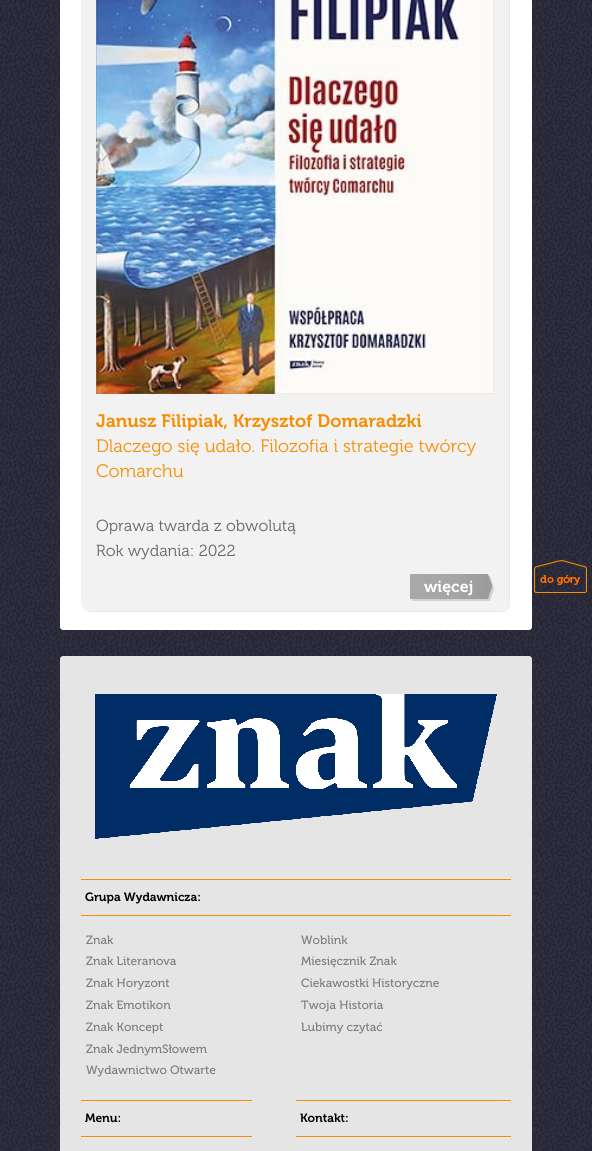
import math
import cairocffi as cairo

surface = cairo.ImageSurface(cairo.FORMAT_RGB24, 592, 1151)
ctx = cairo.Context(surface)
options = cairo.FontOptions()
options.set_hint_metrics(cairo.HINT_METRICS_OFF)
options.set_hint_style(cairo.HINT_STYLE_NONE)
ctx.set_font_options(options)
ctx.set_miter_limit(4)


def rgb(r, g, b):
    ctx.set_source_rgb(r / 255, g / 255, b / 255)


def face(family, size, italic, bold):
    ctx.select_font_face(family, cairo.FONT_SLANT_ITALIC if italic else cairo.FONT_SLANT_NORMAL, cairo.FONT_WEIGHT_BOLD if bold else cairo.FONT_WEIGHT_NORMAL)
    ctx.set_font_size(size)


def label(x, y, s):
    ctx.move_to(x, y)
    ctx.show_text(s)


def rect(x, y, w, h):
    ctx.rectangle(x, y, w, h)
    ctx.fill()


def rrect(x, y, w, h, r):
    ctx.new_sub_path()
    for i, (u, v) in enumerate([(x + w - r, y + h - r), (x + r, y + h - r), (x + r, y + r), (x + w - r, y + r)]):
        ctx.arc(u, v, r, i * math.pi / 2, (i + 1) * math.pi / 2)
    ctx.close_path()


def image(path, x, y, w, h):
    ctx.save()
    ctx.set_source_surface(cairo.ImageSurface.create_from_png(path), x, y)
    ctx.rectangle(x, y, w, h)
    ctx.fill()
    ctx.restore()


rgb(255, 255, 255)
ctx.paint()
image('image0.png', 0, 0, 592, 1151)
rgb(255, 255, 255)
rrect(60, -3, 472, 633, 3)
ctx.fill()
rgb(233, 233, 233)
ctx.new_path()
ctx.move_to(84, 609)
ctx.curve_to(85, 611, 88, 612, 90, 612)
ctx.line_to(502, 612)
ctx.curve_to(506, 612, 510, 608, 510, 604)
ctx.line_to(510, -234)
ctx.curve_to(510, -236, 509, -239, 507, -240)
ctx.curve_to(508, -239, 509, -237, 509, -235)
ctx.line_to(509, 603)
ctx.curve_to(509, 607, 505, 611, 501, 611)
ctx.line_to(89, 611)
ctx.curve_to(87, 611, 85, 610, 84, 609)
ctx.close_path()
ctx.fill()
rgb(242, 242, 242)
rrect(81.5, -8.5, 427, 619, 7.5)
ctx.fill_preserve()
ctx.set_line_width(1)
ctx.stroke()
image('image1.png', 96, 0, 398, 394)
face('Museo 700 SemiBold', 18, 0, 0)
rgb(247, 141, 3)
label(96, 427, 'Janusz Filipiak, Krzysztof Domaradzki')
face('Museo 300 Light', 18, 0, 0)
label(96, 452, 'Dlaczego się udało. Filozofia i strategie twórcy')
label(96, 477, 'Comarchu')
face('Museo 300 Light', 16, 0, 0)
rgb(102, 102, 102)
label(96, 531, 'Oprawa twarda z obwolutą')
label(96, 556, 'Rok wydania: 2022')
image('image2.png', 410, 574, 84, 27)
face('Museo 700 SemiBold', 16, 0, 0)
rgb(255, 255, 255)
label(424, 592, 'więcej')
image('image3.png', 534, 560, 53, 33)
rgb(229, 229, 229)
rrect(60, 656, 472, 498, 3)
ctx.fill()
image('image4.png', 95, 694, 402, 145)
rgb(247, 141, 3)
rect(81, 879, 430, 1)
rect(81, 915, 430, 1)
face('Museo 700 SemiBold', 12, 0, 0)
rgb(0, 0, 0)
label(85, 901, 'Grupa Wydawnicza:')
face('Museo', 12, 0, 0)
rgb(124, 124, 124)
label(86, 944, 'Znak')
label(86, 965, 'Znak Literanova')
label(86, 987, 'Znak Horyzont')
label(86, 1009, 'Znak Emotikon')
label(86, 1031, 'Znak Koncept')
label(86, 1053, 'Znak JednymSłowem')
label(86, 1074, 'Wydawnictwo Otwarte')
label(301, 944, 'Woblink')
label(301, 965, 'Miesięcznik Znak')
label(301, 987, 'Ciekawostki Historyczne')
label(301, 1009, 'Twoja Historia')
label(301, 1031, 'Lubimy czytać')
rgb(247, 141, 3)
rect(81, 1100, 171, 1)
rect(81, 1136, 171, 1)
face('Museo 700 SemiBold', 12, 0, 0)
rgb(0, 0, 0)
label(85, 1122, 'Menu:')
rgb(247, 141, 3)
rect(296, 1100, 215, 1)
rect(296, 1136, 215, 1)
rgb(0, 0, 0)
label(300, 1122, 'Kontakt:')
surface.write_to_png('render.png')
